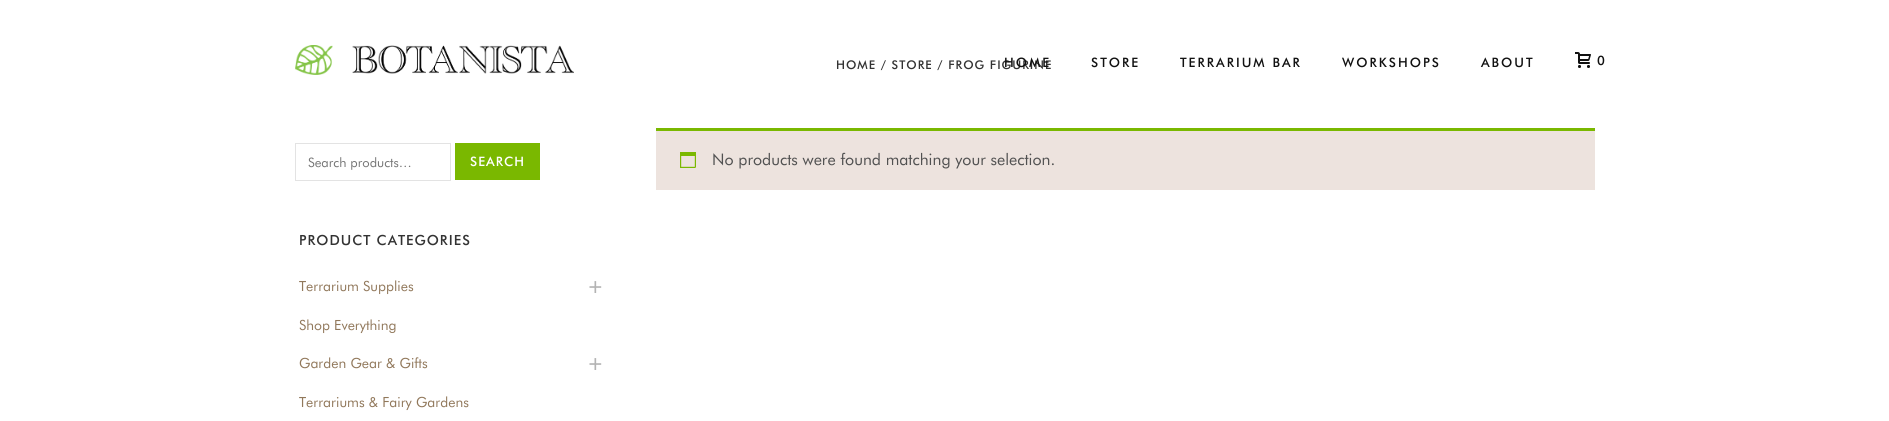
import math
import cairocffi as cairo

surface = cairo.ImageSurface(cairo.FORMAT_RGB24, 1889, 421)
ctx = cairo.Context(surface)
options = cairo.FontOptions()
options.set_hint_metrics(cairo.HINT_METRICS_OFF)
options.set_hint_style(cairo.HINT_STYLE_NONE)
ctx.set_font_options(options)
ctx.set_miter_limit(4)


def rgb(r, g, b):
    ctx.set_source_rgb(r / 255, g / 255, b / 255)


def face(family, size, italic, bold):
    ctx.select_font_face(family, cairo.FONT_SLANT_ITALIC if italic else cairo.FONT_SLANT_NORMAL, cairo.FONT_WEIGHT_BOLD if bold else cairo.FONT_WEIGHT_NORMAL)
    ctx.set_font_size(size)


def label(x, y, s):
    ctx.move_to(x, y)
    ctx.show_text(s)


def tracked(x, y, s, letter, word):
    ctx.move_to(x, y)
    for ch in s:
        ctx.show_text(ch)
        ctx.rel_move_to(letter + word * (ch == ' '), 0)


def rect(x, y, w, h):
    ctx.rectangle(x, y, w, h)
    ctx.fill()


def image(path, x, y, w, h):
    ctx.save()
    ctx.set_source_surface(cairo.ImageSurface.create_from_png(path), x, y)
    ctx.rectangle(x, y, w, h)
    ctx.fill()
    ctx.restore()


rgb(255, 255, 255)
ctx.paint()
face('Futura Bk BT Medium', 12, 0, 0)
rgb(51, 51, 51)
tracked(836, 69, 'HOME / STORE / FROG FIGURINE', 1, 0)
image('image0.png', 295, 45, 279, 30)
face('Futura Bk BT Medium', 13, 0, 0)
rgb(17, 17, 17)
tracked(1004, 67, 'HOME', 2, 0)
tracked(1091, 67, 'STORE', 2, 0)
tracked(1180, 67, 'TERRARIUM BAR', 2, 0)
tracked(1342, 67, 'WORKSHOPS', 2, 0)
tracked(1481, 67, 'ABOUT', 2, 0)
image('image1.png', 1575, 52, 16, 16)
label(1597, 65, '0')
ctx.rectangle(295.5, 143.5, 155, 37)
rgb(227, 227, 227)
ctx.set_line_width(1)
ctx.stroke()
face('Futura', 13, 0, 0)
rgb(117, 117, 117)
label(308, 167, 'Search products…')
rgb(122, 184, 0)
rect(455, 143, 85, 37)
face('Futura Bk BT Medium', 13, 0, 0)
rgb(255, 255, 255)
tracked(470, 166, 'SEARCH', 1, 0)
face('Futura Bk BT Medium', 14, 0, 0)
rgb(51, 51, 51)
tracked(299, 245, 'PRODUCT CATEGORIES', 1, 0)
face('Futura', 14, 0, 0)
rgb(145, 120, 91)
label(299, 291, 'Terrarium Supplies')
face('Futura Bk BT Medium', 20, 0, 0)
rgb(179, 179, 179)
label(587, 293, '+')
face('Futura', 14, 0, 0)
rgb(145, 120, 91)
label(299, 330, 'Shop Everything')
label(299, 368, 'Garden Gear & Gifts')
face('Futura Bk BT Medium', 20, 0, 0)
rgb(179, 179, 179)
label(587, 370, '+')
face('Futura', 14, 0, 0)
rgb(145, 120, 91)
label(299, 407, 'Terrariums & Fairy Gardens')
rgb(237, 227, 222)
rect(656, 131, 939, 59)
rgb(122, 184, 0)
rect(656, 128, 939, 3)
image('image2.png', 680, 152, 16, 16)
face('Futura', 16, 0, 0)
rgb(81, 81, 81)
label(712, 165, 'No products were found matching your selection.')
surface.write_to_png('render.png')
